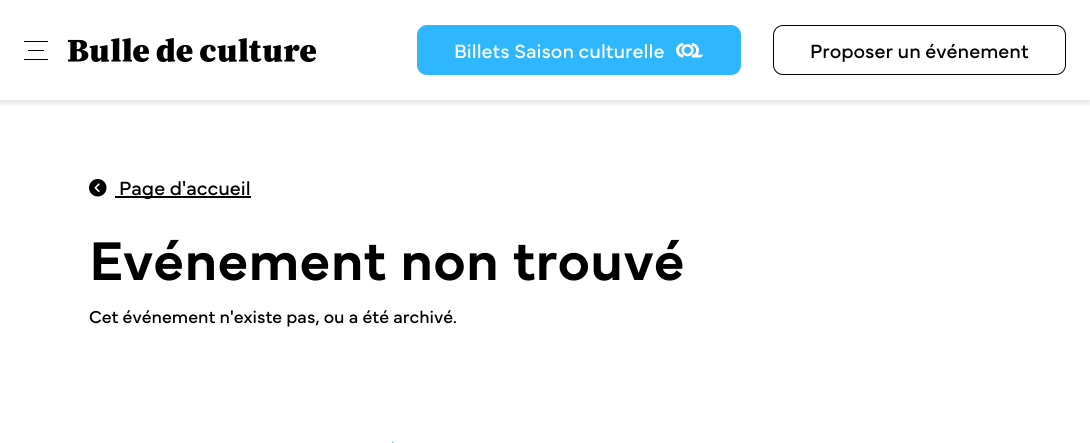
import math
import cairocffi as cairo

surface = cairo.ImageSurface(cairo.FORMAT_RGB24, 1090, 443)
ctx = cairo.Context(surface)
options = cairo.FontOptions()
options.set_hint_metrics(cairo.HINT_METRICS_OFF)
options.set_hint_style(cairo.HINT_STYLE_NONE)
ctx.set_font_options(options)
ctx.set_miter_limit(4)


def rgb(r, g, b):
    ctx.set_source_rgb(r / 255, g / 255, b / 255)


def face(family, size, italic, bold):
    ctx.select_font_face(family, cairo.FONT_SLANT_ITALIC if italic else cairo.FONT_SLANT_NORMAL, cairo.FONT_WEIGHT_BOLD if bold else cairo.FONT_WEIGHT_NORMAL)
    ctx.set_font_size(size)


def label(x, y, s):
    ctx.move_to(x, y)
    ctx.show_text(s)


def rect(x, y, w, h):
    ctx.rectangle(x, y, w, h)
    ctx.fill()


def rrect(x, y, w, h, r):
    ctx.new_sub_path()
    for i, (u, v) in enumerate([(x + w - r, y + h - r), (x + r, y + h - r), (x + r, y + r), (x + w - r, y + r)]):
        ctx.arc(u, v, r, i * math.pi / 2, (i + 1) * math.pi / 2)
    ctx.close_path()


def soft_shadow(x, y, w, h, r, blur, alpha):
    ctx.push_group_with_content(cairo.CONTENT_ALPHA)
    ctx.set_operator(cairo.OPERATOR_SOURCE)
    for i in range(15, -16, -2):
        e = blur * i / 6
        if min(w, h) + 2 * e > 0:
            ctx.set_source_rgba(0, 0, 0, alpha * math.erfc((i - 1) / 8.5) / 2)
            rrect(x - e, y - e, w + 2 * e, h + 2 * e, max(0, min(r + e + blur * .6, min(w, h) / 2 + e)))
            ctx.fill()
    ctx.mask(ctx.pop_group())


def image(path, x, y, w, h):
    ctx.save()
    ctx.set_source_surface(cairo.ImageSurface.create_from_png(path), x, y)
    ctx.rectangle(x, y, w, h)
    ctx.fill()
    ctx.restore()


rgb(255, 255, 255)
ctx.paint()
ctx.save()
ctx.rectangle(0, 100, 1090, 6)
ctx.clip()
rgb(0, 0, 0)
soft_shadow(0, 0, 1090, 100, 0, 5, 0.2)
ctx.restore()
rgb(0, 0, 0)
rect(24, 41, 24, 1)
rect(28, 50, 16, 1)
rect(24, 59, 24, 1)
image('image0.png', 68, 38, 248, 24)
rgb(46, 182, 255)
rrect(417.5, 25.5, 323, 49, 9.5)
ctx.fill_preserve()
ctx.set_line_width(1)
ctx.stroke()
face('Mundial', 20, 0, 0)
rgb(255, 255, 255)
label(454, 58, 'Billets Saison culturelle')
image('image1.png', 676, 43, 27, 15)
rrect(773.5, 25.5, 292, 49, 9.5)
rgb(0, 0, 0)
ctx.stroke()
label(810, 58, 'Proposer un événement')
image('image2.png', 89, 179, 18, 18)
rect(115, 196, 136, 2)
label(119, 195, 'Page d\'accueil')
face('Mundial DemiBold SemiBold', 56.75, 0, 0)
label(89, 280, 'Evénement non trouvé')
face('Mundial', 18, 0, 0)
label(89, 323, 'Cet événement n\'existe pas, ou a été archivé.')
image('image3.png', 392, 441, 2, 2)
surface.write_to_png('render.png')
